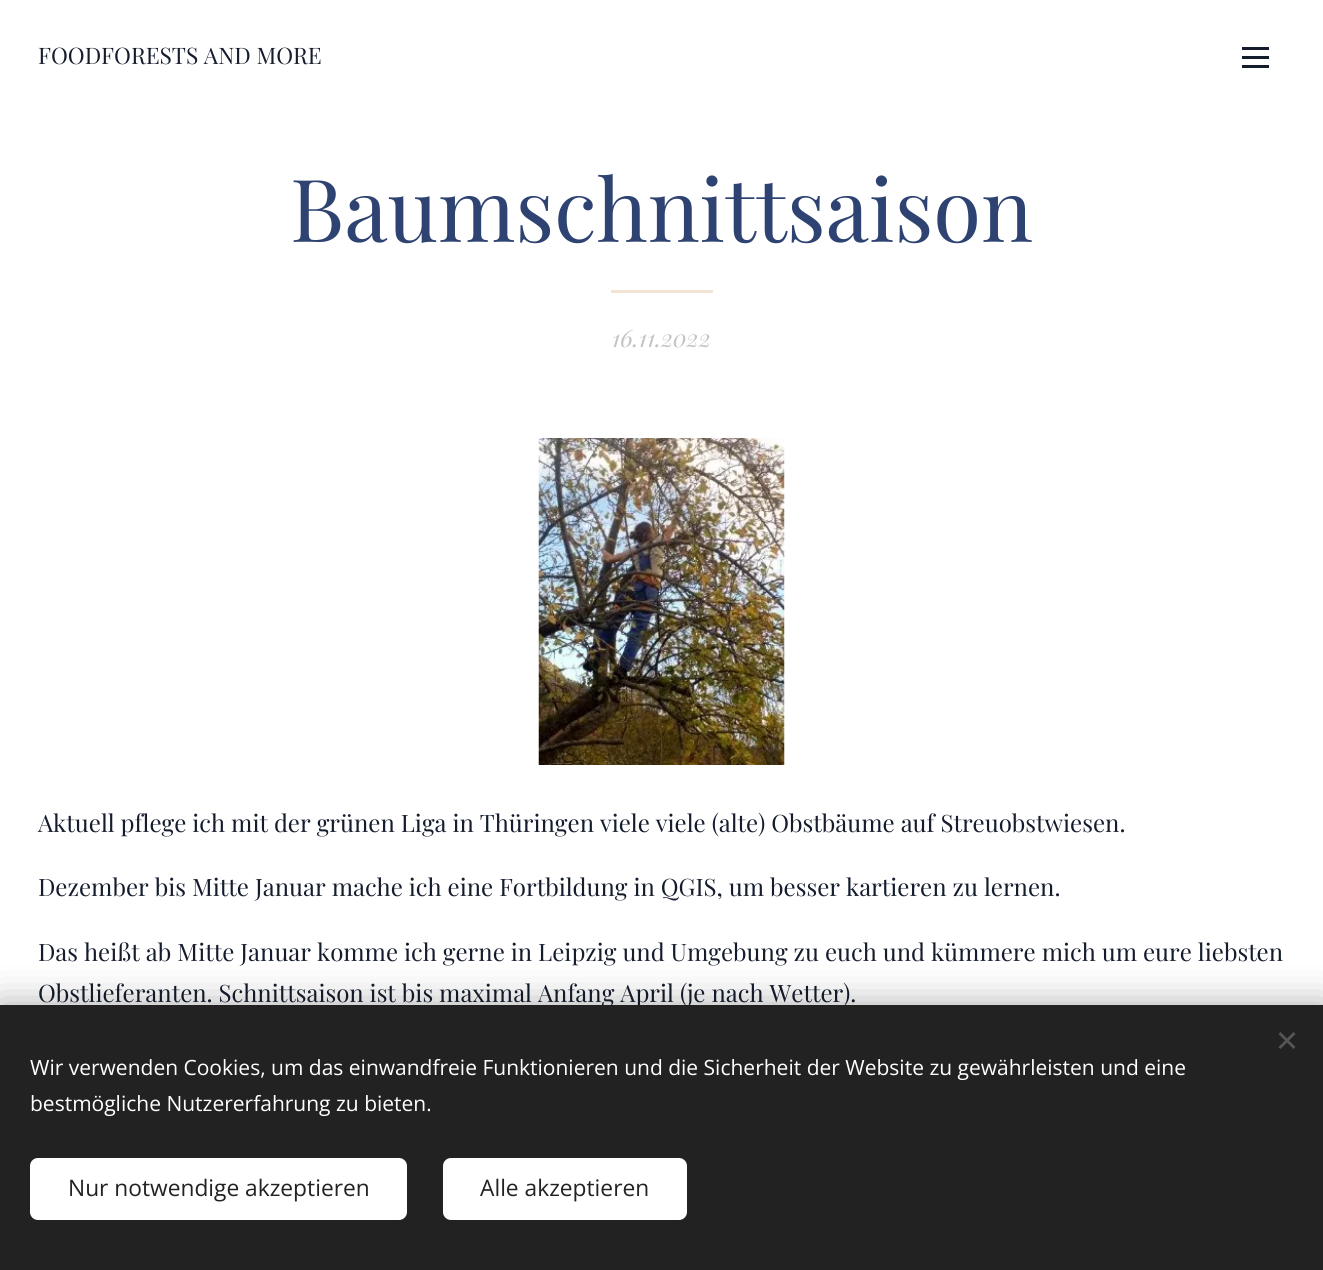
import math
import cairocffi as cairo

surface = cairo.ImageSurface(cairo.FORMAT_RGB24, 1323, 1270)
ctx = cairo.Context(surface)
options = cairo.FontOptions()
options.set_hint_metrics(cairo.HINT_METRICS_OFF)
options.set_hint_style(cairo.HINT_STYLE_NONE)
ctx.set_font_options(options)
ctx.set_miter_limit(4)


def rgb(r, g, b):
    ctx.set_source_rgb(r / 255, g / 255, b / 255)


def face(family, size, italic, bold):
    ctx.select_font_face(family, cairo.FONT_SLANT_ITALIC if italic else cairo.FONT_SLANT_NORMAL, cairo.FONT_WEIGHT_BOLD if bold else cairo.FONT_WEIGHT_NORMAL)
    ctx.set_font_size(size)


def label(x, y, s):
    ctx.move_to(x, y)
    ctx.show_text(s)


def rect(x, y, w, h):
    ctx.rectangle(x, y, w, h)
    ctx.fill()


def rrect(x, y, w, h, r):
    ctx.new_sub_path()
    for i, (u, v) in enumerate([(x + w - r, y + h - r), (x + r, y + h - r), (x + r, y + r), (x + w - r, y + r)]):
        ctx.arc(u, v, r, i * math.pi / 2, (i + 1) * math.pi / 2)
    ctx.close_path()


def soft_shadow(x, y, w, h, r, blur, alpha):
    ctx.push_group_with_content(cairo.CONTENT_ALPHA)
    ctx.set_operator(cairo.OPERATOR_SOURCE)
    for i in range(15, -16, -2):
        e = blur * i / 6
        if min(w, h) + 2 * e > 0:
            ctx.set_source_rgba(0, 0, 0, alpha * math.erfc((i - 1) / 8.5) / 2)
            rrect(x - e, y - e, w + 2 * e, h + 2 * e, max(0, min(r + e + blur * .6, min(w, h) / 2 + e)))
            ctx.fill()
    ctx.mask(ctx.pop_group())


def image(path, x, y, w, h):
    ctx.save()
    ctx.set_source_surface(cairo.ImageSurface.create_from_png(path), x, y)
    ctx.rectangle(x, y, w, h)
    ctx.fill()
    ctx.restore()


rgb(255, 255, 255)
ctx.paint()
face('Playfair Display', 22.75, 0, 0)
rgb(20, 28, 45)
label(38, 64, 'FOODFORESTS AND MORE')
rect(1242, 56, 27, 3)
rect(1242, 47, 27, 3)
rect(1242, 65, 27, 3)
face('Playfair Display', 87, 0, 0)
rgb(46, 67, 113)
label(290, 242, 'Baumschnittsaison')
rgb(242, 227, 212)
rect(611, 290, 102, 3)
face('Playfair Display', 24, 1, 0)
rgb(195, 195, 195)
label(612, 347, '16.11.2022')
image('image0.png', 538, 438, 247, 327)
face('Playfair Display', 24, 0, 0)
rgb(20, 28, 45)
label(38, 832, 'Aktuell pflege ich mit der grünen Liga in Thüringen viele viele (alte) Obstbäume auf Streuobstwiesen.')
label(38, 896, 'Dezember bis Mitte Januar mache ich eine Fortbildung in QGIS, um besser kartieren zu lernen.')
label(38, 961, 'Das heißt ab Mitte Januar komme ich gerne in Leipzig und Umgebung zu euch und kümmere mich um eure liebsten')
label(38, 1002, 'Obstlieferanten. Schnittsaison ist bis maximal Anfang April (je nach Wetter).')
rgb(0, 0, 0)
soft_shadow(0, 1005, 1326, 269, 0, 19, 0.33)
rgb(34, 34, 34)
rect(0, 1005, 1323, 265)
rgb(85, 85, 85)
ctx.new_path()
ctx.move_to(1278.5, 1047)
ctx.line_to(1293.5, 1032)
ctx.line_to(1295.5, 1034)
ctx.line_to(1280.5, 1049)
ctx.close_path()
ctx.fill()
ctx.new_path()
ctx.move_to(1280.5, 1032)
ctx.line_to(1295.5, 1047)
ctx.line_to(1293.5, 1049)
ctx.line_to(1278.5, 1034)
ctx.close_path()
ctx.fill()
face('Open Sans', 21, 0, 0)
rgb(255, 255, 255)
label(30, 1075, 'Wir verwenden Cookies, um das einwandfreie Funktionieren und die Sicherheit der Website zu gewährleisten und eine')
label(30, 1111, 'bestmögliche Nutzererfahrung zu bieten.')
rrect(30, 1158, 377, 62, 8)
ctx.fill()
face('Open Sans', 22.75, 0, 0)
rgb(34, 34, 34)
label(68, 1196, 'Nur notwendige akzeptieren')
rgb(255, 255, 255)
rrect(443, 1158, 244, 62, 8)
ctx.fill()
rgb(34, 34, 34)
label(480, 1196, 'Alle akzeptieren')
surface.write_to_png('render.png')
